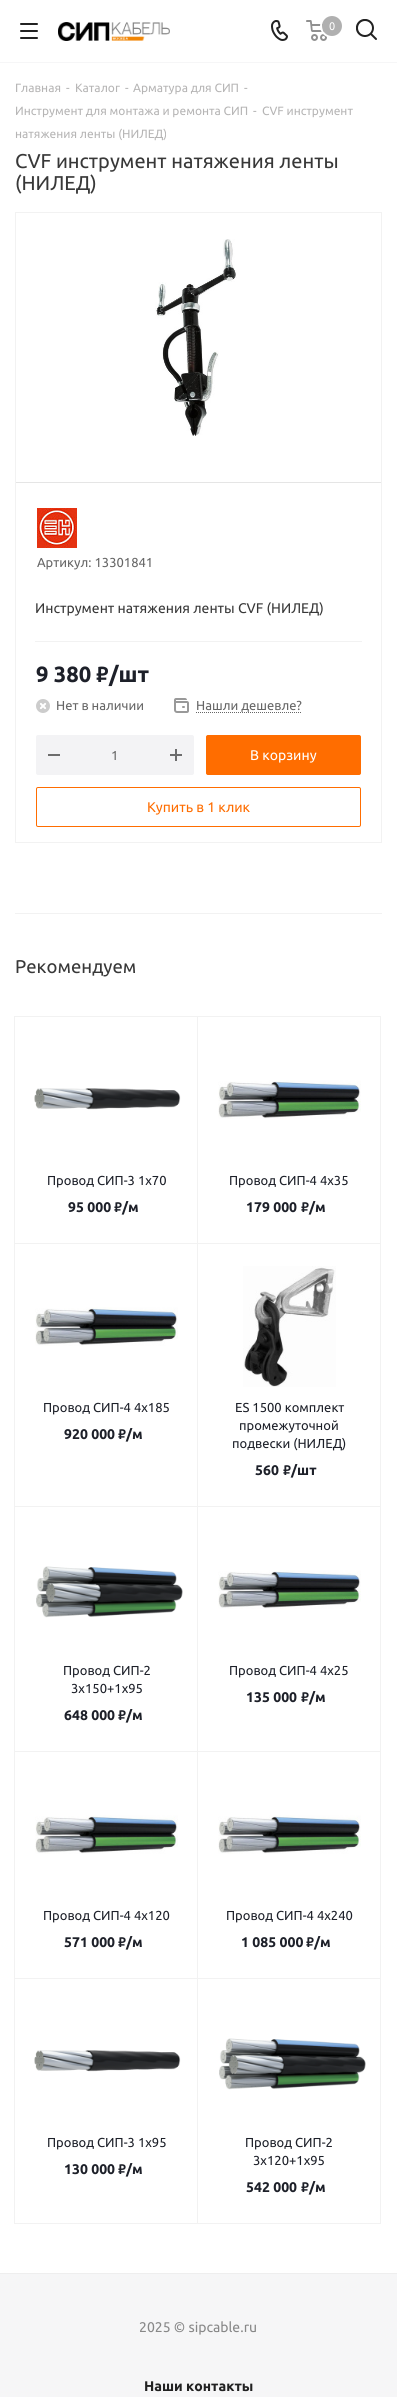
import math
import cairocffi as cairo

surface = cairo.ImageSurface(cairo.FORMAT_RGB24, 397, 2397)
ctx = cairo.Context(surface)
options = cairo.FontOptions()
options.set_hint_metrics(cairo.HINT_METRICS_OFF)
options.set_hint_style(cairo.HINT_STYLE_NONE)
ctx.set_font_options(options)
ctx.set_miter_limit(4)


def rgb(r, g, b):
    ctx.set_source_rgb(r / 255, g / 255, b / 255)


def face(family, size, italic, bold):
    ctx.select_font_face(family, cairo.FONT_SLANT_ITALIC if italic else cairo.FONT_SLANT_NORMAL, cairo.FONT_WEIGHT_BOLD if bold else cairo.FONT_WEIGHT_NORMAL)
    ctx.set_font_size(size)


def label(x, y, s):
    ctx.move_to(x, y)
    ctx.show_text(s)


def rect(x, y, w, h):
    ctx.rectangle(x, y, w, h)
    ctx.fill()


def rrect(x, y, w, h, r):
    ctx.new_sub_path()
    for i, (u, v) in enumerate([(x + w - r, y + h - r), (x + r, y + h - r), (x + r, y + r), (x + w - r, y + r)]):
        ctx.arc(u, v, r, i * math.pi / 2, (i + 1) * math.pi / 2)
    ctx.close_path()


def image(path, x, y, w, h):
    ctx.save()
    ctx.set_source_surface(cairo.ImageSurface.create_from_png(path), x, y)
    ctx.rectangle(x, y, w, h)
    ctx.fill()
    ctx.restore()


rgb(246, 246, 247)
ctx.paint()
rgb(255, 255, 255)
rect(0, 0, 397, 62)
image('image0.png', 20, 23, 18, 16)
image('image1.png', 58, 22, 112, 19)
image('image2.png', 271, 20, 17, 21)
image('image3.png', 306, 20, 21, 21)
ctx.arc(332, 26, 11, 0, 2 * math.pi)
ctx.stroke()
rgb(176, 176, 176)
ctx.arc(332, 26, 10, 0, 2 * math.pi)
ctx.fill()
face('Ubuntu', 11, 0, 0)
rgb(255, 255, 255)
label(329, 30, '0')
image('image4.png', 356, 19, 21, 21)
rect(0, 63, 397, 2210)
face('Ubuntu', 12, 0, 0)
rgb(182, 181, 181)
label(15, 92, 'Главная')
label(66, 92, '-')
label(75, 92, 'Каталог')
label(125, 92, '-')
label(133, 92, 'Арматура для СИП')
label(244, 92, '-')
label(15, 115, 'Инструмент для монтажа и ремонта СИП')
label(253, 115, '-')
label(262, 115, 'CVF инструмент')
label(15, 138, 'натяжения ленты (НИЛЕД)')
face('Ubuntu', 20, 0, 0)
rgb(56, 56, 56)
label(15, 168, 'CVF инструмент натяжения ленты')
label(15, 190, '(НИЛЕД)')
ctx.rectangle(15.5, 212.5, 366, 630)
rgb(242, 242, 242)
ctx.set_line_width(1)
ctx.stroke()
image('image5.png', 155, 239, 82, 197)
rgb(229, 229, 229)
rect(16, 482, 365, 1)
rgb(242, 242, 242)
rect(35, 641, 327, 1)
image('image6.png', 37, 508, 40, 40)
face('Ubuntu', 13, 0, 0)
rgb(102, 102, 102)
label(37, 567, 'Артикул: 13301841')
face('Ubuntu', 14, 0, 0)
rgb(56, 56, 56)
label(35, 613, 'Инструмент натяжения ленты CVF (НИЛЕД)')
face('Ubuntu', 22, 0, 1)
rgb(29, 32, 41)
label(36, 682, '9 380')
face('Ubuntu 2', 22, 0, 1)
label(96, 682, '₽')
face('Ubuntu', 22, 0, 1)
label(109, 682, '/шт')
image('image7.png', 36, 699, 14, 14)
face('Ubuntu', 13, 0, 0)
rgb(102, 102, 102)
label(56, 710, 'Нет в наличии')
image('image8.png', 174, 698, 15, 15)
label(196, 710, 'Нашли дешевле?')
ctx.new_path()
ctx.move_to(196, 712.5)
ctx.line_to(302, 712.5)
ctx.set_dash([1, 1])
ctx.stroke()
rgb(243, 243, 245)
rrect(36, 735, 158, 40, 2)
ctx.fill()
rgb(109, 109, 109)
rect(48, 754, 12, 2)
rgb(102, 102, 102)
label(111, 760, '1')
image('image9.png', 170, 749, 12, 12)
rgb(255, 109, 0)
rrect(206.5, 735.5, 154, 39, 1.5)
ctx.fill_preserve()
ctx.set_dash([])
ctx.stroke()
face('Ubuntu', 14, 0, 0)
rgb(255, 255, 255)
label(250, 760, 'В корзину')
rrect(36.5, 787.5, 324, 39, 1.5)
rgb(255, 109, 0)
ctx.stroke()
label(147, 812, 'Купить в 1 клик')
rgb(242, 242, 242)
rect(15, 913, 367, 1)
face('Ubuntu', 18.5, 0, 0)
rgb(56, 56, 56)
label(15, 973, 'Рекомендуем')
ctx.rectangle(14.5, 1016.5, 184, 227)
rgb(242, 242, 242)
ctx.stroke()
image('image10.png', 34, 1088, 147, 22)
face('Ubuntu', 13, 0, 0)
rgb(29, 32, 41)
label(47, 1185, 'Провод СИП-3 1х70')
face('Ubuntu', 14, 0, 1)
label(68, 1212, '95 000')
face('Ubuntu 2', 14, 0, 1)
label(114, 1212, '₽')
face('Ubuntu', 14, 0, 1)
label(122, 1212, '/м')
rgb(255, 255, 255)
rect(198, 1017, 1, 226)
ctx.rectangle(197.5, 1016.5, 183, 227)
rgb(242, 242, 242)
ctx.stroke()
image('image11.png', 218, 1080, 143, 39)
face('Ubuntu', 13, 0, 0)
rgb(29, 32, 41)
label(229, 1185, 'Провод СИП-4 4х35')
face('Ubuntu', 14, 0, 1)
label(246, 1212, '179 000')
face('Ubuntu 2', 14, 0, 1)
label(301, 1212, '₽')
face('Ubuntu', 14, 0, 1)
label(309, 1212, '/м')
ctx.rectangle(14.5, 1243.5, 184, 263)
rgb(242, 242, 242)
ctx.stroke()
image('image11.png', 35, 1307, 143, 39)
face('Ubuntu', 13, 0, 0)
rgb(29, 32, 41)
label(43, 1412, 'Провод СИП-4 4х185')
face('Ubuntu', 14, 0, 1)
label(64, 1439, '920 000')
face('Ubuntu 2', 14, 0, 1)
label(118, 1439, '₽')
face('Ubuntu', 14, 0, 1)
label(126, 1439, '/м')
rgb(255, 255, 255)
rect(198, 1244, 1, 262)
ctx.rectangle(197.5, 1243.5, 183, 263)
rgb(242, 242, 242)
ctx.stroke()
image('image12.png', 243, 1266, 93, 121)
face('Ubuntu', 13, 0, 0)
rgb(29, 32, 41)
label(235, 1412, 'ES 1500 комплект')
label(239, 1430, 'промежуточной')
label(232, 1448, 'подвески (НИЛЕД)')
face('Ubuntu', 14, 0, 1)
label(255, 1475, '560')
face('Ubuntu 2', 14, 0, 1)
label(283, 1475, '₽')
face('Ubuntu', 14, 0, 1)
label(291, 1475, '/шт')
ctx.rectangle(14.5, 1506.5, 184, 245)
rgb(242, 242, 242)
ctx.stroke()
image('image13.png', 36, 1566, 147, 52)
face('Ubuntu', 13, 0, 0)
rgb(29, 32, 41)
label(63, 1675, 'Провод СИП-2')
label(71, 1693, '3х150+1х95')
face('Ubuntu', 14, 0, 1)
label(64, 1720, '648 000')
face('Ubuntu 2', 14, 0, 1)
label(118, 1720, '₽')
face('Ubuntu', 14, 0, 1)
label(126, 1720, '/м')
rgb(255, 255, 255)
rect(198, 1507, 1, 244)
ctx.rectangle(197.5, 1506.5, 183, 245)
rgb(242, 242, 242)
ctx.stroke()
image('image11.png', 218, 1570, 143, 39)
face('Ubuntu', 13, 0, 0)
rgb(29, 32, 41)
label(229, 1675, 'Провод СИП-4 4х25')
face('Ubuntu', 14, 0, 1)
label(246, 1702, '135 000')
face('Ubuntu 2', 14, 0, 1)
label(301, 1702, '₽')
face('Ubuntu', 14, 0, 1)
label(309, 1702, '/м')
ctx.rectangle(14.5, 1751.5, 184, 227)
rgb(242, 242, 242)
ctx.stroke()
image('image11.png', 35, 1815, 143, 39)
face('Ubuntu', 13, 0, 0)
rgb(29, 32, 41)
label(43, 1920, 'Провод СИП-4 4х120')
face('Ubuntu', 14, 0, 1)
label(64, 1947, '571 000')
face('Ubuntu 2', 14, 0, 1)
label(118, 1947, '₽')
face('Ubuntu', 14, 0, 1)
label(126, 1947, '/м')
rgb(255, 255, 255)
rect(198, 1752, 1, 226)
ctx.rectangle(197.5, 1751.5, 183, 227)
rgb(242, 242, 242)
ctx.stroke()
image('image11.png', 218, 1815, 143, 39)
face('Ubuntu', 13, 0, 0)
rgb(29, 32, 41)
label(226, 1920, 'Провод СИП-4 4х240')
face('Ubuntu', 14, 0, 1)
label(241, 1947, '1 085 000')
face('Ubuntu 2', 14, 0, 1)
label(306, 1947, '₽')
face('Ubuntu', 14, 0, 1)
label(314, 1947, '/м')
ctx.rectangle(14.5, 1978.5, 184, 245)
rgb(242, 242, 242)
ctx.stroke()
image('image10.png', 34, 2050, 147, 22)
face('Ubuntu', 13, 0, 0)
rgb(29, 32, 41)
label(47, 2147, 'Провод СИП-3 1х95')
face('Ubuntu', 14, 0, 1)
label(64, 2174, '130 000')
face('Ubuntu 2', 14, 0, 1)
label(118, 2174, '₽')
face('Ubuntu', 14, 0, 1)
label(126, 2174, '/м')
rgb(255, 255, 255)
rect(198, 1979, 1, 244)
ctx.rectangle(197.5, 1978.5, 183, 245)
rgb(242, 242, 242)
ctx.stroke()
image('image14.png', 219, 2038, 147, 52)
face('Ubuntu', 13, 0, 0)
rgb(29, 32, 41)
label(245, 2147, 'Провод СИП-2')
label(253, 2165, '3х120+1х95')
face('Ubuntu', 14, 0, 1)
label(246, 2192, '542 000')
face('Ubuntu 2', 14, 0, 1)
label(301, 2192, '₽')
face('Ubuntu', 14, 0, 1)
label(309, 2192, '/м')
rgb(238, 238, 238)
rect(0, 2273, 397, 1)
face('Ubuntu', 14, 0, 0)
rgb(136, 136, 136)
label(139, 2332, '2025 © sipcable.ru')
face('Ubuntu', 14, 0, 1)
rgb(34, 34, 34)
label(144, 2391, 'Наши контакты')
surface.write_to_png('render.png')
